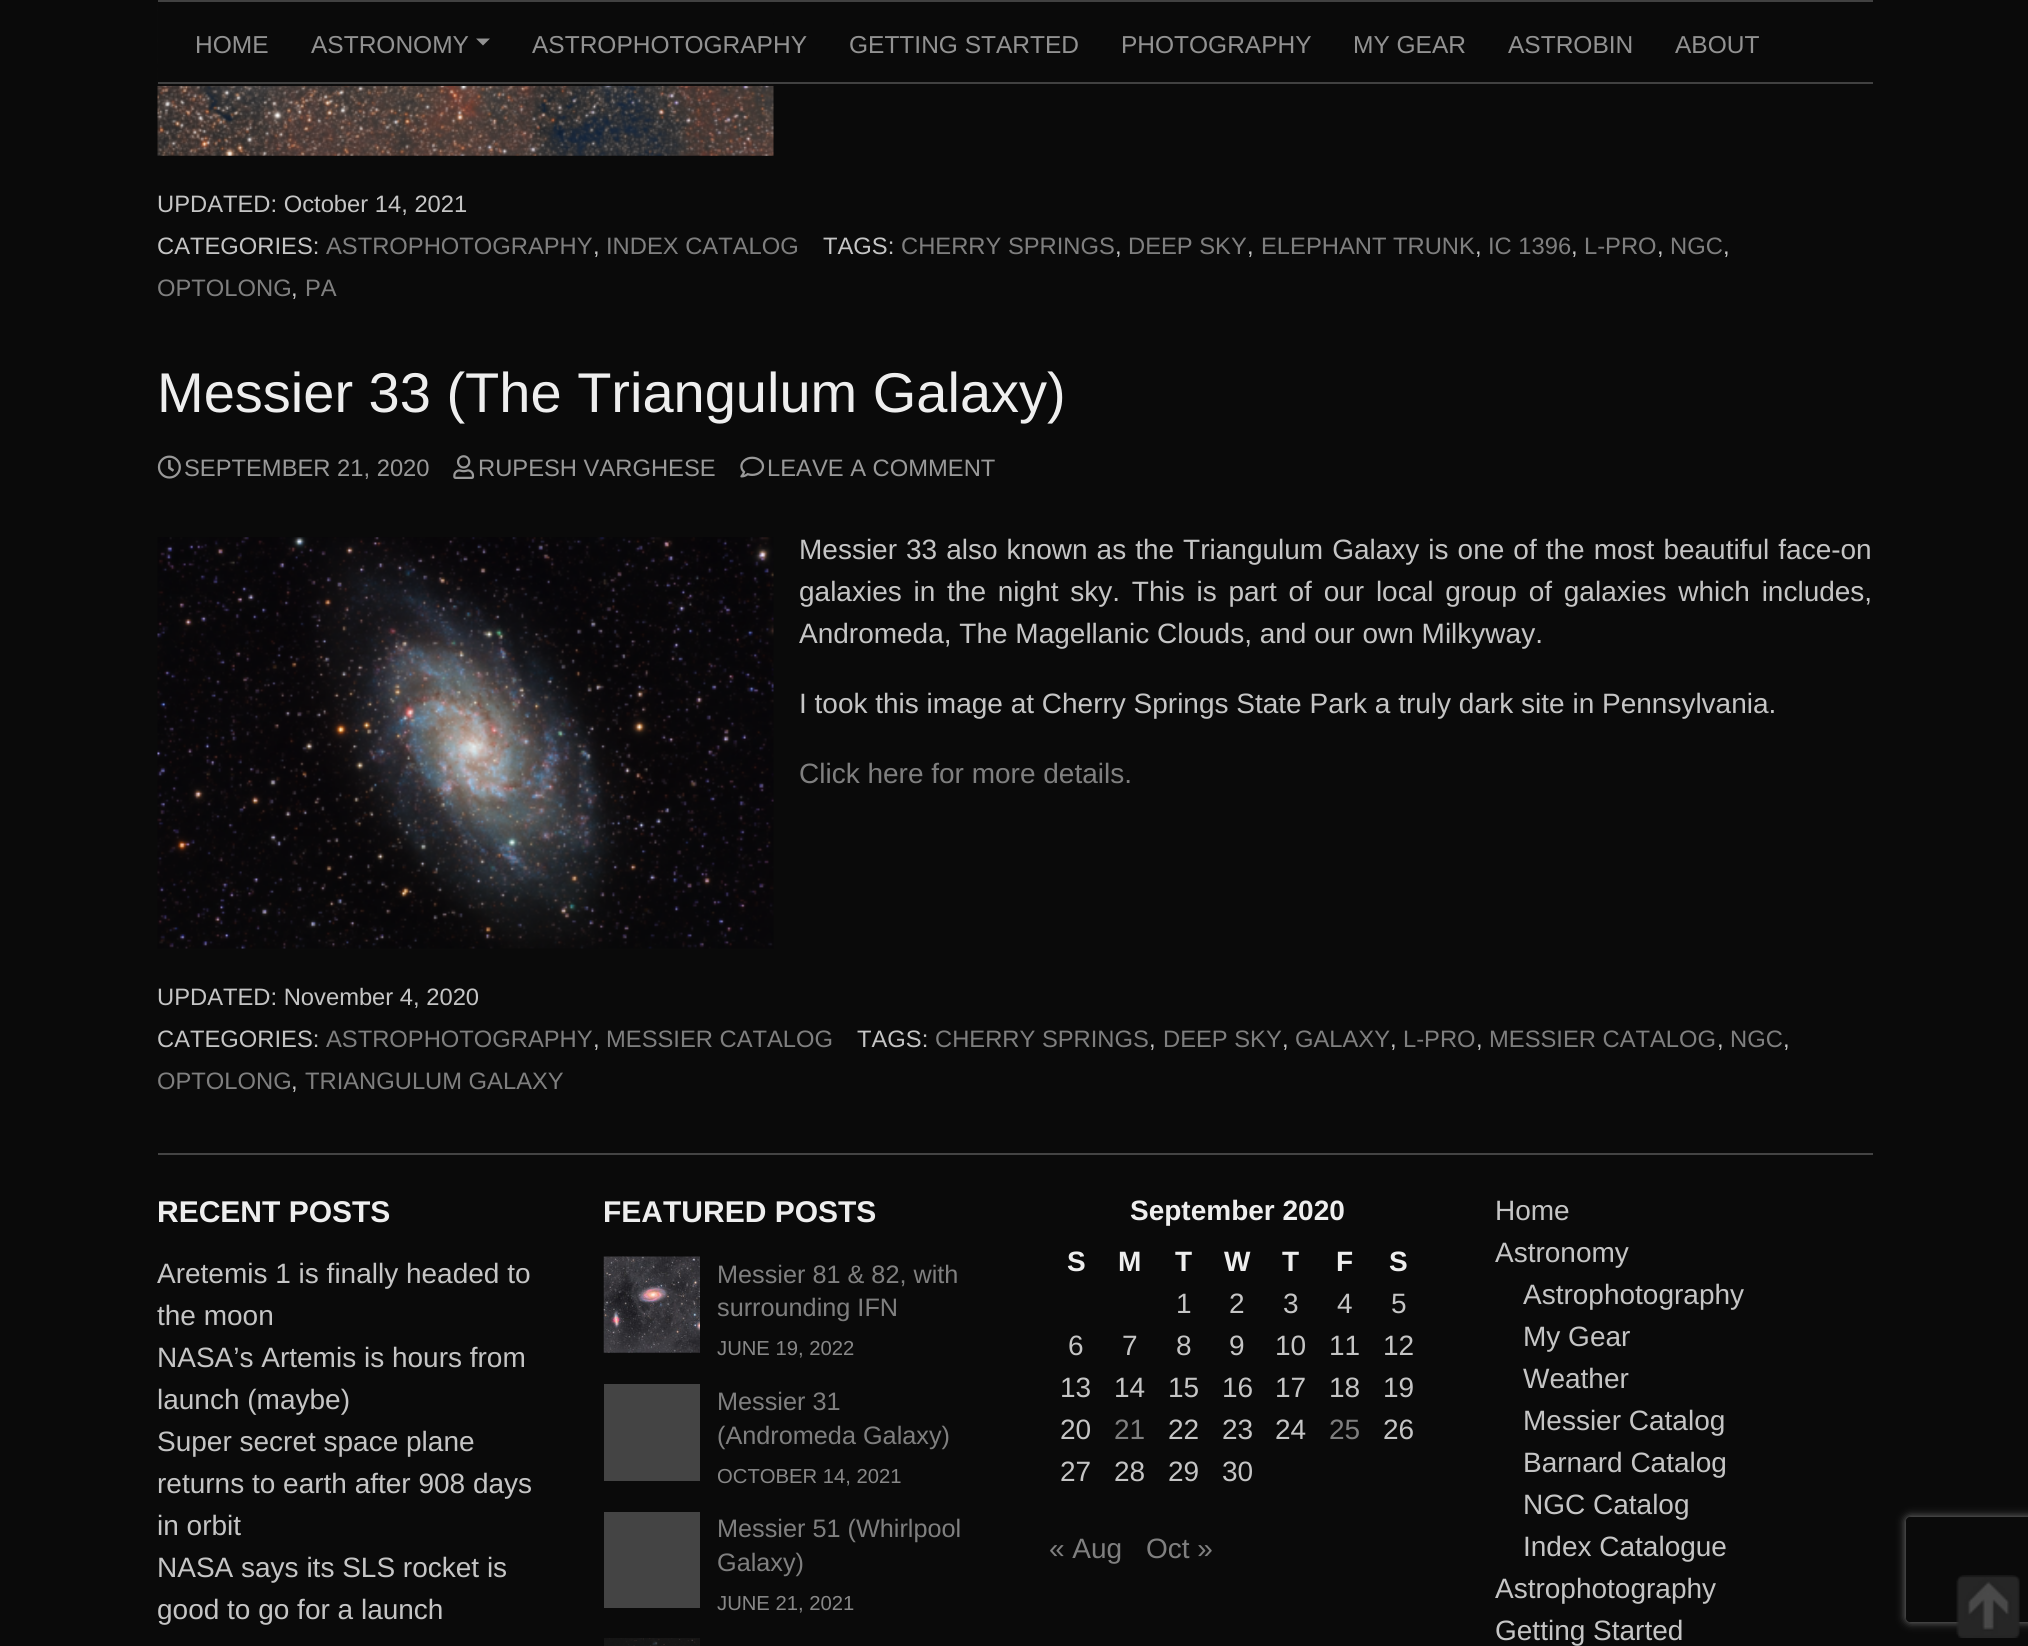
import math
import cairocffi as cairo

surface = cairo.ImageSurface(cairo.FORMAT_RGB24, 2028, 1646)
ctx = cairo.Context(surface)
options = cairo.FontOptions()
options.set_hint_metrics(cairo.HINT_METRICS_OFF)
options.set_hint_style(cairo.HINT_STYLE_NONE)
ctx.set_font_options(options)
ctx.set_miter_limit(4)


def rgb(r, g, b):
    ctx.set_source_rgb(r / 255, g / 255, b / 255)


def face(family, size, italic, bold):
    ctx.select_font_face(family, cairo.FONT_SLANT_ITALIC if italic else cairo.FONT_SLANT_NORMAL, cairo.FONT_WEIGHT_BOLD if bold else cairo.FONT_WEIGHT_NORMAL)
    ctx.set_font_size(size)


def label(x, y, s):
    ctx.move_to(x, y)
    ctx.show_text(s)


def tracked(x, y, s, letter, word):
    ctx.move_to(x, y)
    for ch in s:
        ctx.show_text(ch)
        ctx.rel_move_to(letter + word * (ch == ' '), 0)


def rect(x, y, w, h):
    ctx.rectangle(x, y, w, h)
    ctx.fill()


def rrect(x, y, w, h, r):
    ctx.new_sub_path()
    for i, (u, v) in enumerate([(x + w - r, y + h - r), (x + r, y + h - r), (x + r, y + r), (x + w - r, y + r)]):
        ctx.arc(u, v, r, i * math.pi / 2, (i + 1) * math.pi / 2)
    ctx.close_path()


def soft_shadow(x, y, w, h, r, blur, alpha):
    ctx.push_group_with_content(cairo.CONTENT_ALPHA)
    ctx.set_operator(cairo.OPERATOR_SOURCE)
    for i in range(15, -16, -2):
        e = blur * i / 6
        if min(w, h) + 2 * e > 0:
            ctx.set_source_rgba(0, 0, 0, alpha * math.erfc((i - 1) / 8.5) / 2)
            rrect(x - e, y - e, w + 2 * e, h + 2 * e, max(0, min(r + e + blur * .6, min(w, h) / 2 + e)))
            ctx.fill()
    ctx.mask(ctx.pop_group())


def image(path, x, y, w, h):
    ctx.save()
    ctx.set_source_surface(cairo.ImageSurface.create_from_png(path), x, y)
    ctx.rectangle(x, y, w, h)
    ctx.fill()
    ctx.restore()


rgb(10, 10, 10)
ctx.paint()
image('image0.png', 157, 0, 617, 156)
ctx.set_source_rgba(0.039, 0.039, 0.039, 0.95)
rect(157, 0, 617, 86)
rect(158, 2, 616, 80)
rgb(65, 65, 65)
rect(158, 0, 1715, 2)
rect(158, 82, 1715, 2)
face('Liberation Sans', 24.5, 0, 0)
rgb(146, 146, 146)
label(195, 53, 'HOME')
label(311, 53, 'ASTRONOMY')
ctx.new_path()
ctx.move_to(476, 38.5)
ctx.line_to(490, 38.5)
ctx.line_to(483, 45.5)
ctx.close_path()
ctx.fill()
label(532, 53, 'ASTROPHOTOGRAPHY')
label(849, 53, 'GETTING STARTED')
label(1121, 53, 'PHOTOGRAPHY')
label(1353, 53, 'MY GEAR')
label(1508, 53, 'ASTROBIN')
label(1675, 53, 'ABOUT')
face('Liberation Sans', 23.75, 0, 0)
rgb(197, 197, 197)
label(157, 212, 'UPDATED: October 14, 2021')
label(157, 254, 'CATEGORIES:')
rgb(127, 127, 127)
label(326, 254, 'ASTROPHOTOGRAPHY')
rgb(197, 197, 197)
label(593, 254, ',')
rgb(127, 127, 127)
label(606, 254, 'INDEX CATALOG')
rgb(197, 197, 197)
label(823, 254, 'TAGS:')
rgb(127, 127, 127)
label(901, 254, 'CHERRY SPRINGS')
rgb(197, 197, 197)
label(1115, 254, ',')
rgb(127, 127, 127)
label(1128, 254, 'DEEP SKY')
rgb(197, 197, 197)
label(1247, 254, ',')
rgb(127, 127, 127)
label(1261, 254, 'ELEPHANT TRUNK')
rgb(197, 197, 197)
label(1475, 254, ',')
rgb(127, 127, 127)
label(1488, 254, 'IC 1396')
rgb(197, 197, 197)
label(1571, 254, ',')
rgb(127, 127, 127)
label(1584, 254, 'L-PRO')
rgb(197, 197, 197)
label(1657, 254, ',')
rgb(127, 127, 127)
label(1670, 254, 'NGC')
rgb(197, 197, 197)
label(1723, 254, ',')
rgb(127, 127, 127)
label(157, 296, 'OPTOLONG')
rgb(197, 197, 197)
label(291, 296, ',')
rgb(127, 127, 127)
label(305, 296, 'PA')
face('Liberation Sans', 56, 0, 0)
rgb(238, 238, 238)
label(157, 412, 'Messier 33 (The Triangulum Galaxy)')
image('image1.png', 157, 455, 24, 24)
face('Liberation Sans', 23.75, 0, 0)
rgb(153, 153, 153)
label(184, 476, 'SEPTEMBER 21, 2020')
image('image2.png', 453, 455, 22, 24)
label(478, 476, 'RUPESH VARGHESE')
image('image3.png', 740, 456, 25, 22)
label(767, 476, 'LEAVE A COMMENT')
image('image4.png', 157, 537, 617, 412)
face('Liberation Sans', 28, 0, 0)
rgb(197, 197, 197)
tracked(799, 559, 'Messier 33 also known as the Triangulum Galaxy is one of the most beautiful face-on', 0, 1.25)
tracked(799, 601, 'galaxies in the night sky. This is part of our local group of galaxies which includes,', 0, 4)
label(799, 643, 'Andromeda, The Magellanic Clouds, and our own Milkyway.')
label(799, 713, 'I took this image at Cherry Springs State Park a truly dark site in Pennsylvania.')
rgb(127, 127, 127)
label(799, 783, 'Click here for more details.')
face('Liberation Sans', 23.75, 0, 0)
rgb(197, 197, 197)
label(157, 1005, 'UPDATED: November 4, 2020')
label(157, 1047, 'CATEGORIES:')
rgb(127, 127, 127)
label(326, 1047, 'ASTROPHOTOGRAPHY')
rgb(197, 197, 197)
label(593, 1047, ',')
rgb(127, 127, 127)
label(606, 1047, 'MESSIER CATALOG')
rgb(197, 197, 197)
label(857, 1047, 'TAGS:')
rgb(127, 127, 127)
label(935, 1047, 'CHERRY SPRINGS')
rgb(197, 197, 197)
label(1149, 1047, ',')
rgb(127, 127, 127)
label(1163, 1047, 'DEEP SKY')
rgb(197, 197, 197)
label(1282, 1047, ',')
rgb(127, 127, 127)
label(1295, 1047, 'GALAXY')
rgb(197, 197, 197)
label(1390, 1047, ',')
rgb(127, 127, 127)
label(1403, 1047, 'L-PRO')
rgb(197, 197, 197)
label(1476, 1047, ',')
rgb(127, 127, 127)
label(1489, 1047, 'MESSIER CATALOG')
rgb(197, 197, 197)
label(1717, 1047, ',')
rgb(127, 127, 127)
label(1730, 1047, 'NGC')
rgb(197, 197, 197)
label(1783, 1047, ',')
rgb(127, 127, 127)
label(157, 1089, 'OPTOLONG')
rgb(197, 197, 197)
label(291, 1089, ',')
rgb(127, 127, 127)
label(305, 1089, 'TRIANGULUM GALAXY')
rgb(68, 68, 68)
rect(158, 1153, 1715, 2)
face('Liberation Sans', 30, 0, 1)
rgb(238, 238, 238)
label(157, 1222, 'RECENT POSTS')
face('Liberation Sans', 28, 0, 0)
rgb(197, 197, 197)
label(157, 1283, 'Aretemis 1 is finally headed to')
label(157, 1325, 'the moon')
label(157, 1367, 'NASA’s Artemis is hours from')
label(157, 1409, 'launch (maybe)')
label(157, 1451, 'Super secret space plane')
label(157, 1493, 'returns to earth after 908 days')
label(157, 1535, 'in orbit')
label(157, 1577, 'NASA says its SLS rocket is')
label(157, 1619, 'good to go for a launch')
face('Liberation Sans', 30, 0, 1)
rgb(238, 238, 238)
label(603, 1222, 'FEATURED POSTS')
image('image5.png', 603, 1256, 97, 97)
face('Liberation Sans', 25.25, 0, 0)
rgb(127, 127, 127)
label(717, 1283, 'Messier 81 & 82, with')
label(717, 1316, 'surrounding IFN')
face('Liberation Sans', 20.25, 0, 0)
rgb(136, 136, 136)
label(717, 1355, 'JUNE 19, 2022')
rgb(68, 68, 68)
rect(604, 1384, 96, 97)
face('Liberation Sans', 25.25, 0, 0)
rgb(127, 127, 127)
label(717, 1410, 'Messier 31')
label(717, 1444, '(Andromeda Galaxy)')
face('Liberation Sans', 20.25, 0, 0)
rgb(136, 136, 136)
label(717, 1483, 'OCTOBER 14, 2021')
rgb(68, 68, 68)
rect(604, 1512, 96, 96)
face('Liberation Sans', 25.25, 0, 0)
rgb(127, 127, 127)
label(717, 1537, 'Messier 51 (Whirlpool')
label(717, 1571, 'Galaxy)')
face('Liberation Sans', 20.25, 0, 0)
rgb(136, 136, 136)
label(717, 1610, 'JUNE 21, 2021')
image('image6.png', 604, 1638, 96, 8)
face('Liberation Sans', 28, 0, 1)
rgb(238, 238, 238)
label(1130, 1220, 'September 2020')
label(1067, 1271, 'S')
label(1118, 1271, 'M')
label(1175, 1271, 'T')
label(1224, 1271, 'W')
label(1282, 1271, 'T')
label(1336, 1271, 'F')
label(1389, 1271, 'S')
face('Liberation Sans', 28, 0, 0)
rgb(197, 197, 197)
label(1176, 1313, '1')
label(1229, 1313, '2')
label(1283, 1313, '3')
label(1337, 1313, '4')
label(1391, 1313, '5')
label(1068, 1355, '6')
label(1122, 1355, '7')
label(1176, 1355, '8')
label(1229, 1355, '9')
label(1275, 1355, '10')
label(1329, 1355, '11')
label(1383, 1355, '12')
label(1060, 1397, '13')
label(1114, 1397, '14')
label(1168, 1397, '15')
label(1222, 1397, '16')
label(1275, 1397, '17')
label(1329, 1397, '18')
label(1383, 1397, '19')
label(1060, 1439, '20')
rgb(127, 127, 127)
label(1114, 1439, '21')
rgb(197, 197, 197)
label(1168, 1439, '22')
label(1222, 1439, '23')
label(1275, 1439, '24')
rgb(127, 127, 127)
label(1329, 1439, '25')
rgb(197, 197, 197)
label(1383, 1439, '26')
label(1060, 1481, '27')
label(1114, 1481, '28')
label(1168, 1481, '29')
label(1222, 1481, '30')
rgb(127, 127, 127)
label(1049, 1558, '« Aug')
label(1146, 1558, 'Oct »')
rgb(197, 197, 197)
label(1495, 1220, 'Home')
label(1495, 1262, 'Astronomy')
label(1523, 1304, 'Astrophotography')
label(1523, 1346, 'My Gear')
label(1523, 1388, 'Weather')
label(1523, 1430, 'Messier Catalog')
label(1523, 1472, 'Barnard Catalog')
label(1523, 1514, 'NGC Catalog')
label(1523, 1556, 'Index Catalogue')
label(1495, 1598, 'Astrophotography')
label(1495, 1640, 'Getting Started')
ctx.save()
ctx.set_fill_rule(cairo.FILL_RULE_EVEN_ODD)
ctx.new_path()
ctx.move_to(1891, 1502)
ctx.line_to(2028, 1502)
ctx.line_to(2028, 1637)
ctx.line_to(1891, 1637)
ctx.close_path()
ctx.move_to(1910, 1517)
ctx.line_to(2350, 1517)
ctx.curve_to(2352, 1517, 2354, 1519, 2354, 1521)
ctx.line_to(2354, 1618)
ctx.curve_to(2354, 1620, 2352, 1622, 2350, 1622)
ctx.line_to(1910, 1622)
ctx.curve_to(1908, 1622, 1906, 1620, 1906, 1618)
ctx.line_to(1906, 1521)
ctx.curve_to(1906, 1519, 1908, 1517, 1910, 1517)
ctx.close_path()
ctx.clip()
rgb(128, 128, 128)
soft_shadow(1906, 1517, 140, 105, 4, 4.5, 1)
ctx.restore()
image('image7.png', 1956, 1575, 64, 63)
surface.write_to_png('render.png')
